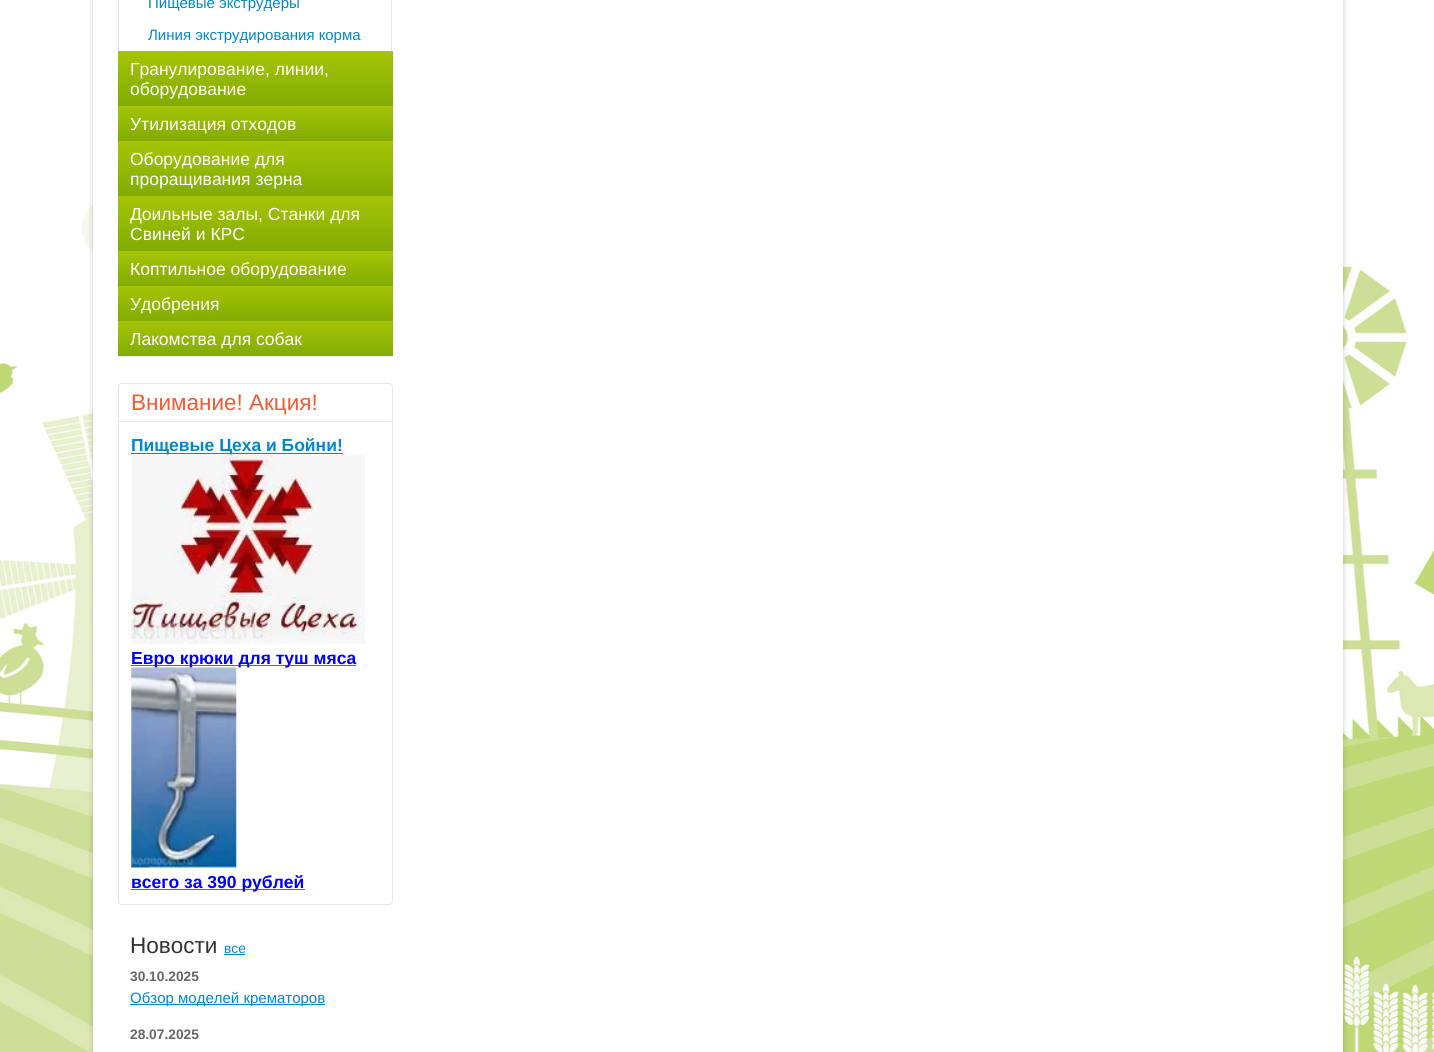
import math
import cairocffi as cairo

surface = cairo.ImageSurface(cairo.FORMAT_RGB24, 1434, 1052)
ctx = cairo.Context(surface)
options = cairo.FontOptions()
options.set_hint_metrics(cairo.HINT_METRICS_OFF)
options.set_hint_style(cairo.HINT_STYLE_NONE)
ctx.set_font_options(options)
ctx.set_miter_limit(4)


def rgb(r, g, b):
    ctx.set_source_rgb(r / 255, g / 255, b / 255)


def face(family, size, italic, bold):
    ctx.select_font_face(family, cairo.FONT_SLANT_ITALIC if italic else cairo.FONT_SLANT_NORMAL, cairo.FONT_WEIGHT_BOLD if bold else cairo.FONT_WEIGHT_NORMAL)
    ctx.set_font_size(size)


def label(x, y, s):
    ctx.move_to(x, y)
    ctx.show_text(s)


def rect(x, y, w, h):
    ctx.rectangle(x, y, w, h)
    ctx.fill()


def rrect(x, y, w, h, r):
    ctx.new_sub_path()
    for i, (u, v) in enumerate([(x + w - r, y + h - r), (x + r, y + h - r), (x + r, y + r), (x + w - r, y + r)]):
        ctx.arc(u, v, r, i * math.pi / 2, (i + 1) * math.pi / 2)
    ctx.close_path()


def soft_shadow(x, y, w, h, r, blur, alpha):
    ctx.push_group_with_content(cairo.CONTENT_ALPHA)
    ctx.set_operator(cairo.OPERATOR_SOURCE)
    for i in range(15, -16, -2):
        e = blur * i / 6
        if min(w, h) + 2 * e > 0:
            ctx.set_source_rgba(0, 0, 0, alpha * math.erfc((i - 1) / 8.5) / 2)
            rrect(x - e, y - e, w + 2 * e, h + 2 * e, max(0, min(r + e + blur * .6, min(w, h) / 2 + e)))
            ctx.fill()
    ctx.mask(ctx.pop_group())


def image(path, x, y, w, h):
    ctx.save()
    ctx.set_source_surface(cairo.ImageSurface.create_from_png(path), x, y)
    ctx.rectangle(x, y, w, h)
    ctx.fill()
    ctx.restore()


rgb(255, 255, 255)
ctx.paint()
image('image0.png', 0, 70, 1434, 982)
rgb(0, 0, 0)
soft_shadow(93, -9, 1250, 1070, 0, 3, 0.2)
rgb(255, 255, 255)
rect(93, 0, 1250, 1052)
rgb(227, 233, 238)
rect(391, 0, 1, 51)
rect(118, 0, 1, 51)
face('Liberation Sans', 15, 0, 0)
rgb(0, 136, 204)
label(148, 8, 'Пищевые экструдеры')
label(148, 40, 'Линия экструдирования корма')
gradient = cairo.LinearGradient(255, 51, 255, 106)
gradient.add_color_stop_rgba(0, 0.651, 0.769, 0.02, 1)
gradient.add_color_stop_rgba(1, 0.506, 0.675, 0.016, 1)
ctx.set_source(gradient)
rect(118, 51, 275, 55)
face('Liberation Sans', 17.5, 0, 0)
rgb(255, 255, 255)
label(130, 75, 'Гранулирование, линии,')
label(130, 95, 'оборудование')
gradient = cairo.LinearGradient(255, 106, 255, 141)
gradient.add_color_stop_rgba(0, 0.651, 0.769, 0.02, 1)
gradient.add_color_stop_rgba(1, 0.506, 0.675, 0.016, 1)
ctx.set_source(gradient)
rect(118, 106, 275, 35)
rgb(255, 255, 255)
label(130, 130, 'Утилизация отходов')
gradient = cairo.LinearGradient(255, 141, 255, 196)
gradient.add_color_stop_rgba(0, 0.651, 0.769, 0.02, 1)
gradient.add_color_stop_rgba(1, 0.506, 0.675, 0.016, 1)
ctx.set_source(gradient)
rect(118, 141, 275, 55)
rgb(255, 255, 255)
label(130, 165, 'Оборудование для')
label(130, 185, 'проращивания зерна')
gradient = cairo.LinearGradient(255, 196, 255, 251)
gradient.add_color_stop_rgba(0, 0.651, 0.769, 0.02, 1)
gradient.add_color_stop_rgba(1, 0.506, 0.675, 0.016, 1)
ctx.set_source(gradient)
rect(118, 196, 275, 55)
rgb(255, 255, 255)
label(130, 220, 'Доильные залы, Станки для')
label(130, 240, 'Свиней и КРС')
gradient = cairo.LinearGradient(255, 251, 255, 286)
gradient.add_color_stop_rgba(0, 0.651, 0.769, 0.02, 1)
gradient.add_color_stop_rgba(1, 0.506, 0.675, 0.016, 1)
ctx.set_source(gradient)
rect(118, 251, 275, 35)
rgb(255, 255, 255)
label(130, 275, 'Коптильное оборудование')
gradient = cairo.LinearGradient(255, 286, 255, 321)
gradient.add_color_stop_rgba(0, 0.651, 0.769, 0.02, 1)
gradient.add_color_stop_rgba(1, 0.506, 0.675, 0.016, 1)
ctx.set_source(gradient)
rect(118, 286, 275, 35)
rgb(255, 255, 255)
label(130, 310, 'Удобрения')
rgb(227, 233, 238)
rect(118, 356, 275, 1)
gradient = cairo.LinearGradient(255, 321, 255, 356)
gradient.add_color_stop_rgba(0, 0.651, 0.769, 0.02, 1)
gradient.add_color_stop_rgba(1, 0.506, 0.675, 0.016, 1)
ctx.set_source(gradient)
rect(118, 321, 275, 35)
rgb(255, 255, 255)
label(130, 345, 'Лакомства для собак')
rrect(118.5, 383.5, 274, 521, 3.5)
rgb(227, 233, 238)
ctx.set_line_width(1)
ctx.stroke()
rect(119, 421, 272, 1)
face('Liberation Sans', 22.5, 0, 0)
rgb(241, 90, 51)
label(131, 410, 'Внимание! Акция!')
rgb(0, 136, 204)
rect(131, 453, 212, 1)
face('Liberation Sans', 17.5, 0, 1)
label(131, 451, 'Пищевые Цеха и Бойни!')
image('image1.png', 131, 455, 234, 189)
rect(131, 665, 225, 1)
rgb(0, 0, 255)
label(131, 664, 'Евро крюки для туш мяса')
image('image2.png', 131, 667, 106, 201)
rgb(0, 136, 204)
rect(131, 889, 174, 1)
rgb(0, 0, 255)
label(131, 888, 'всего за 390 рублей')
face('Liberation Sans', 22.5, 0, 0)
rgb(51, 51, 51)
label(130, 953, 'Новости')
face('Liberation Sans', 13.75, 0, 0)
rgb(0, 136, 204)
label(224, 953, 'все')
rect(224, 954, 21, 1)
face('Liberation Sans', 13.75, 0, 1)
rgb(102, 102, 102)
label(130, 981, '30.10.2025')
rgb(0, 136, 204)
rect(130, 1004, 195, 1)
face('Liberation Sans', 15, 0, 0)
label(130, 1003, 'Обзор моделей крематоров')
face('Liberation Sans', 13.75, 0, 1)
rgb(102, 102, 102)
label(130, 1039, '28.07.2025')
surface.write_to_png('render.png')
